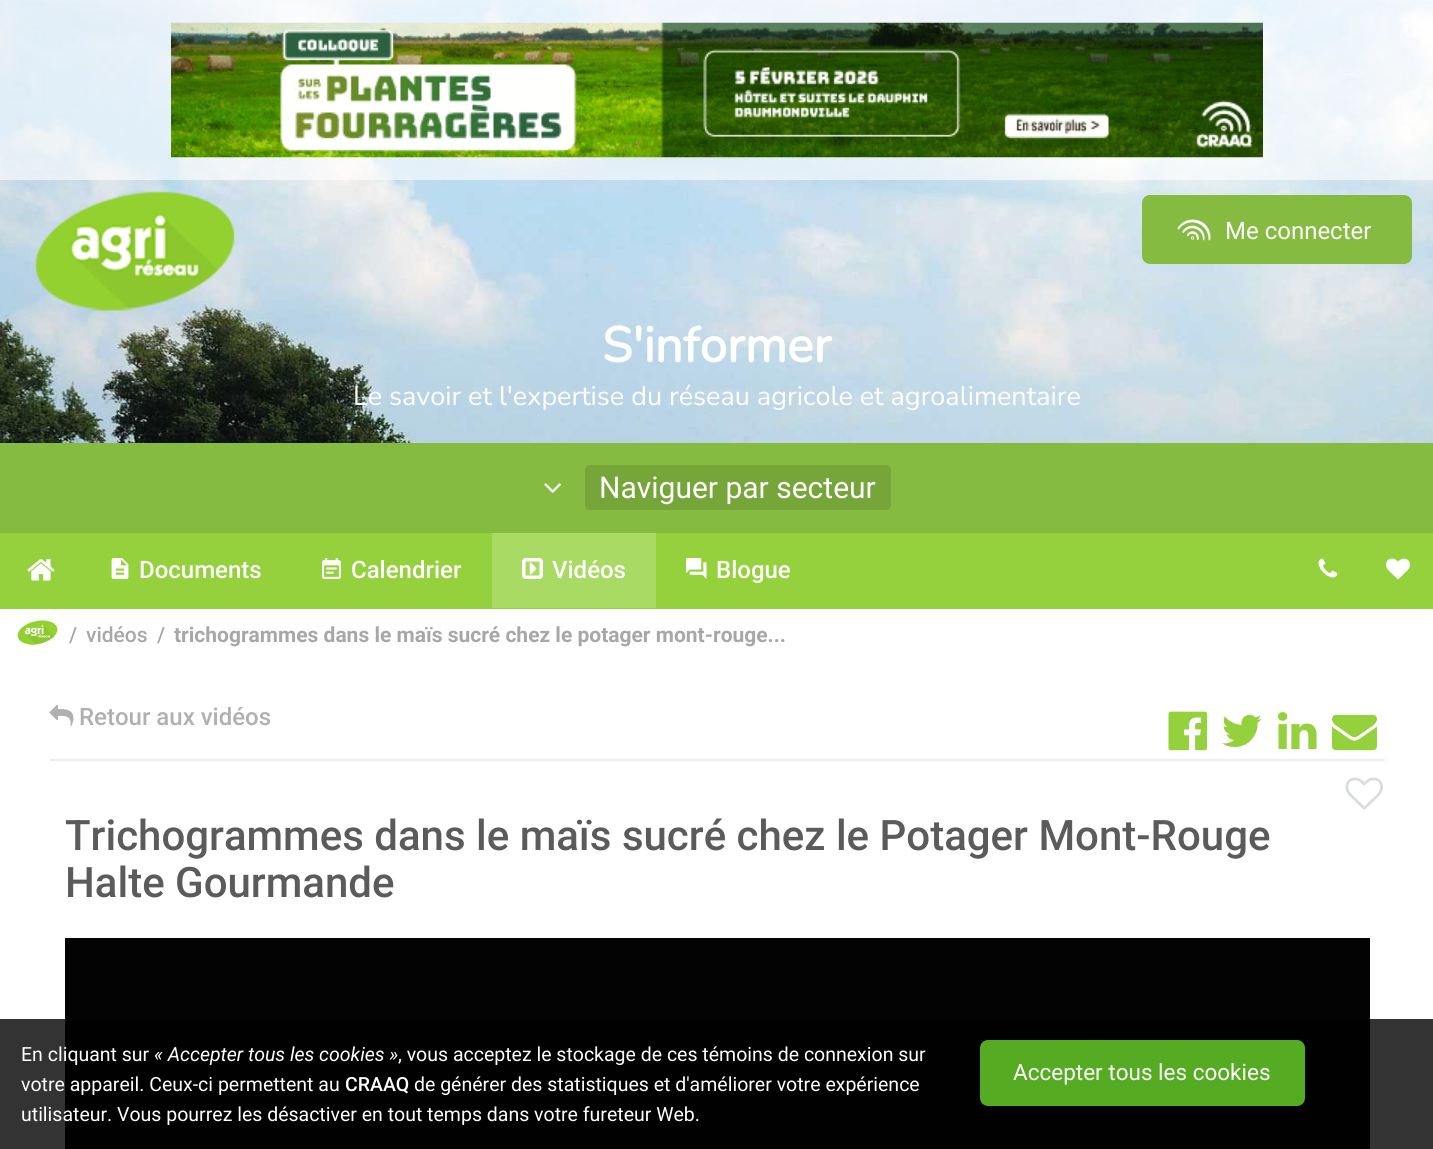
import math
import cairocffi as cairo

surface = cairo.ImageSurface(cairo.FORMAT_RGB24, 1433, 1149)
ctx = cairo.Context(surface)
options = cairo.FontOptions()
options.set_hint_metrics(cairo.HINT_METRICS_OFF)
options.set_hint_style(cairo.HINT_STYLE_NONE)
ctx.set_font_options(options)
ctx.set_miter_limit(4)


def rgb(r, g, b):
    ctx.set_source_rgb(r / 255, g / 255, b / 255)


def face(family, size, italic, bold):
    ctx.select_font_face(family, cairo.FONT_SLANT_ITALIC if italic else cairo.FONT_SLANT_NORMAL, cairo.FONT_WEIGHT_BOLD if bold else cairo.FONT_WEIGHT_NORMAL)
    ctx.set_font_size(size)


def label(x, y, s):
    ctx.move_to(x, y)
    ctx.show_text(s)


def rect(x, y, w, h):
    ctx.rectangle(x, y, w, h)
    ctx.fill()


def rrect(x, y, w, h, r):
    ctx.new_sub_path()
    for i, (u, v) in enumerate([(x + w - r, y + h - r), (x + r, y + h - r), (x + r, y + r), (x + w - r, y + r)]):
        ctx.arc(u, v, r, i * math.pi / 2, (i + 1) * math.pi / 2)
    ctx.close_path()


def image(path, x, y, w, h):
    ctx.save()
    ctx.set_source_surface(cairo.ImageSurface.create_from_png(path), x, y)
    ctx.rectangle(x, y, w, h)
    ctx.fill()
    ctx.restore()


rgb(255, 255, 255)
ctx.paint()
image('image0.png', 0, 0, 1433, 443)
ctx.set_source_rgba(1, 1, 1, 0.6)
rect(0, 0, 1433, 180)
image('image1.png', 171, 22, 1092, 136)
image('image2.png', 35, 191, 200, 120)
rgb(134, 187, 65)
rrect(1142, 195, 270, 69, 8)
ctx.fill()
image('image3.png', 1177, 219, 34, 22)
face('Roboto', 24, 0, 0)
rgb(255, 255, 255)
label(1225, 239, 'Me connecter')
face('Nunito', 49.5, 0, 1)
label(602, 362, 'S\'informer')
face('Nunito ExtraLight', 27, 0, 0)
label(353, 405, 'Le savoir et l\'expertise du réseau agricole et agroalimentaire')
rgb(134, 187, 65)
rect(0, 443, 1433, 90)
image('image4.png', 544, 483, 17, 10)
rgb(118, 165, 57)
rrect(585, 465, 306, 45, 5)
ctx.fill()
face('Roboto', 30, 0, 0)
rgb(255, 255, 255)
label(599, 498, 'Naviguer par secteur')
rgb(148, 209, 61)
rect(0, 533, 1433, 76)
image('image5.png', 27, 559, 28, 22)
image('image6.png', 111, 558, 18, 21)
face('Roboto Medium', 24, 0, 0)
rgb(255, 255, 255)
label(139, 578, 'Documents')
image('image7.png', 322, 558, 19, 21)
label(351, 578, 'Calendrier')
rgb(169, 218, 100)
rect(492, 533, 164, 75)
image('image8.png', 522, 558, 21, 21)
rgb(255, 255, 255)
label(552, 578, 'Vidéos')
image('image9.png', 686, 558, 21, 21)
label(716, 578, 'Blogue')
image('image10.png', 1318, 558, 20, 20)
image('image11.png', 1386, 558, 24, 22)
image('image12.png', 17, 620, 41, 25)
face('Roboto Medium', 21, 0, 0)
rgb(167, 167, 167)
label(69, 642, '/')
label(86, 642, 'vidéos')
label(157, 642, '/')
face('Roboto', 21, 0, 1)
label(174, 642, 'trichogrammes dans le maïs sucré chez le potager mont-rouge...')
rgb(238, 238, 238)
rect(50, 759, 1335, 2)
image('image13.png', 49, 704, 25, 23)
face('Roboto Medium', 24, 0, 0)
rgb(176, 176, 176)
label(79, 725, 'Retour aux vidéos')
image('image14.png', 1168, 711, 40, 40)
image('image15.png', 1222, 714, 40, 33)
image('image16.png', 1278, 712, 39, 37)
image('image17.png', 1332, 714, 45, 37)
image('image18.png', 1345, 777, 38, 33)
face('Roboto Medium', 42, 0, 0)
rgb(91, 91, 91)
label(65, 850, 'Trichogrammes dans le maïs sucré chez le Potager Mont-Rouge')
label(65, 897, 'Halte Gourmande')
rgb(3, 3, 3)
rect(65, 938, 1305, 211)
ctx.set_source_rgba(0, 0, 0, 0.8)
rect(0, 1019, 1433, 130)
face('Roboto', 19.5, 0, 0)
rgb(255, 255, 255)
label(21, 1061, 'En cliquant sur')
face('Roboto', 19.5, 1, 0)
label(154, 1061, '« Accepter tous les cookies »')
face('Roboto', 19.5, 0, 0)
label(398, 1061, ', vous acceptez le stockage de ces témoins de connexion sur')
label(21, 1091, 'votre appareil. Ceux-ci permettent au')
face('Roboto Medium', 19.5, 0, 0)
label(345, 1091, 'CRAAQ')
face('Roboto', 19.5, 0, 0)
label(414, 1091, 'de générer des statistiques et d\'améliorer votre expérience')
label(21, 1121, 'utilisateur. Vous pourrez les désactiver en tout temps dans votre fureteur Web.')
rgb(85, 171, 34)
rrect(980, 1040, 325, 66, 8)
ctx.fill()
face('Roboto', 22.5, 0, 0)
rgb(255, 255, 255)
label(1013, 1080, 'Accepter tous les cookies')
surface.write_to_png('render.png')
